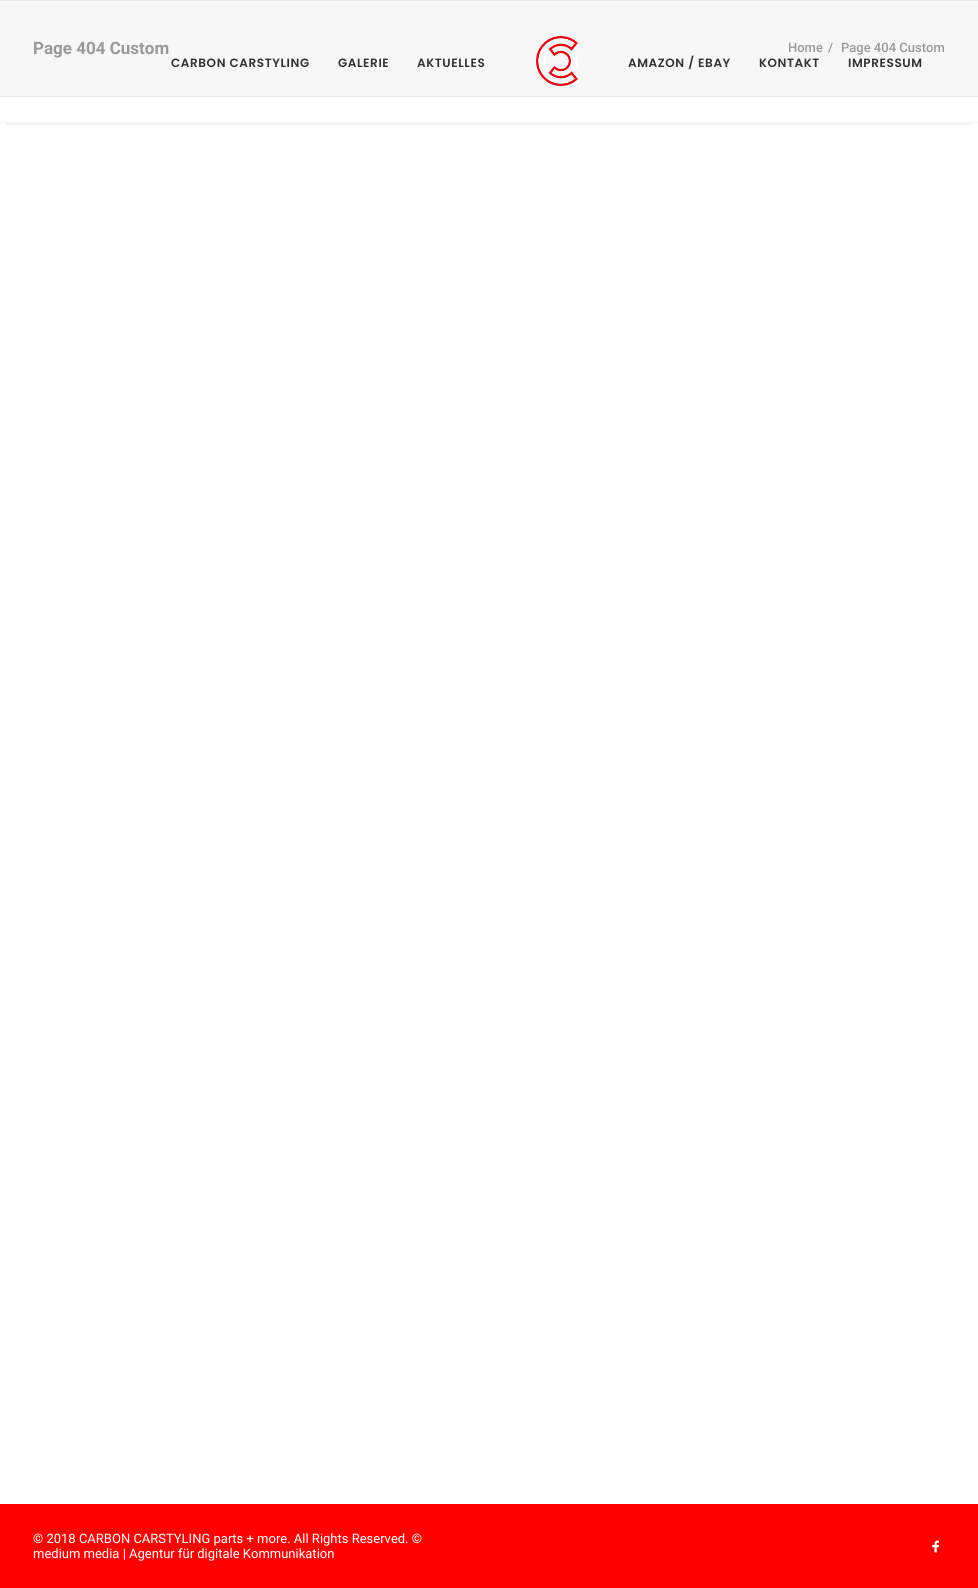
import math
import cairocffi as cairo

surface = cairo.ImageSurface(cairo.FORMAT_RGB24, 978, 1588)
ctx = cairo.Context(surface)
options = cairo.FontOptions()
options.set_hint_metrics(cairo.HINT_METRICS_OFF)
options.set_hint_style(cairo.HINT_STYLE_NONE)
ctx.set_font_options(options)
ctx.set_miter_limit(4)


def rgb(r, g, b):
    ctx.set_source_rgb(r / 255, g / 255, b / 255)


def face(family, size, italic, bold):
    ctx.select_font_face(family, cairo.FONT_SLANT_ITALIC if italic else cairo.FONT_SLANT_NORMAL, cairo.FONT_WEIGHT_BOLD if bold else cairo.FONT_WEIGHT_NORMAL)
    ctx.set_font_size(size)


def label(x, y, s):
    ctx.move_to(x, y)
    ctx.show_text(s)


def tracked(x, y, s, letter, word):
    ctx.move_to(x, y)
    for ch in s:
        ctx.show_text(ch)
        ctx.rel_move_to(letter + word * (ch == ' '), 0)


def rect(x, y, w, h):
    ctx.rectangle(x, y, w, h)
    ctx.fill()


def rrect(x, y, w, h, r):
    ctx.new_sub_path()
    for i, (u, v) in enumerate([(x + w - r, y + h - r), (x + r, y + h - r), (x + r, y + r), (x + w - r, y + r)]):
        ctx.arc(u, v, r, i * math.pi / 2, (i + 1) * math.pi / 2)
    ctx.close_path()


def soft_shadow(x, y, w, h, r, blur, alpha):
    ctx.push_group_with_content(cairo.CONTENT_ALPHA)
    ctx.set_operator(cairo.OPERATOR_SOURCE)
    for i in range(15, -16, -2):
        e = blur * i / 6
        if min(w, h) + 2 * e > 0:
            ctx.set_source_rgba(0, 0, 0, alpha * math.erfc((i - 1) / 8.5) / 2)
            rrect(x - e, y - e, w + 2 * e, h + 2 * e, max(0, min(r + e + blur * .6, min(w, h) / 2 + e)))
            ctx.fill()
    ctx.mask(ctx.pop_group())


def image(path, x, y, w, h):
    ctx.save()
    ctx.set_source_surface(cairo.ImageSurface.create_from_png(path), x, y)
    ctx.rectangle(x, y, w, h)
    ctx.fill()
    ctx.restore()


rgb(255, 255, 255)
ctx.paint()
rgb(247, 247, 247)
rect(0, 1, 978, 95)
rgb(234, 234, 234)
rect(0, 0, 978, 1)
rect(0, 96, 978, 1)
face('Roboto', 17, 0, 1)
rgb(153, 153, 153)
label(33, 54, 'Page 404 Custom')
face('Roboto Medium', 13, 0, 0)
label(788, 52, 'Home')
label(828, 52, '/')
label(841, 52, 'Page 404 Custom')
rgb(255, 0, 0)
rect(0, 1504, 978, 84)
face('Roboto', 13, 0, 0)
rgb(255, 255, 255)
label(33, 1543, '© 2018 CARBON CARSTYLING parts + more. All Rights Reserved. ©')
label(33, 1558, 'medium media | Agentur für digitale Kommunikation')
image('image0.png', 932, 1540, 7, 13)
ctx.save()
ctx.rectangle(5, 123, 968, 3)
ctx.clip()
rgb(0, 0, 0)
soft_shadow(7, 14, 964, 103, 0, 5, 0.6)
ctx.restore()
rgb(245, 245, 245)
rect(0, 122, 978, 1)
face('Poppins SemiBold', 12, 0, 0)
rgb(48, 49, 51)
tracked(171, 67, 'CARBON CARSTYLING', 0.6, 0)
tracked(338, 67, 'GALERIE', 0.6, 0)
tracked(417, 67, 'AKTUELLES', 0.6, 0)
image('image1.png', 536, 36, 42, 50)
tracked(628, 67, 'AMAZON / EBAY', 0.6, 0)
tracked(759, 67, 'KONTAKT', 0.6, 0)
tracked(848, 67, 'IMPRESSUM', 0.6, 0)
surface.write_to_png('render.png')
